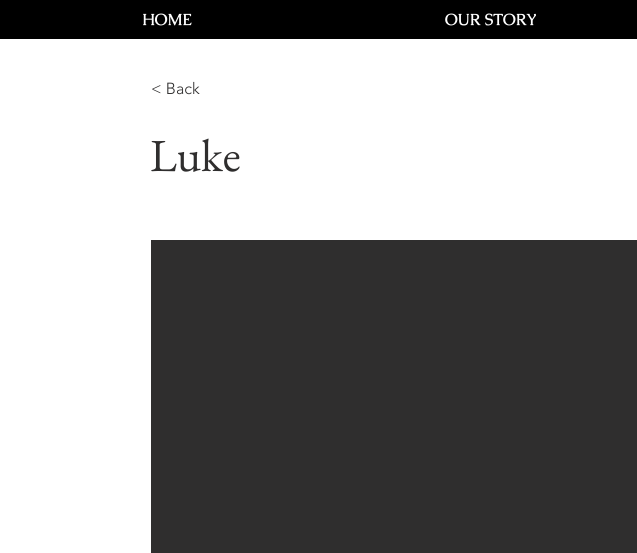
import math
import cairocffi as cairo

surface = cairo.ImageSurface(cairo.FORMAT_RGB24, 637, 553)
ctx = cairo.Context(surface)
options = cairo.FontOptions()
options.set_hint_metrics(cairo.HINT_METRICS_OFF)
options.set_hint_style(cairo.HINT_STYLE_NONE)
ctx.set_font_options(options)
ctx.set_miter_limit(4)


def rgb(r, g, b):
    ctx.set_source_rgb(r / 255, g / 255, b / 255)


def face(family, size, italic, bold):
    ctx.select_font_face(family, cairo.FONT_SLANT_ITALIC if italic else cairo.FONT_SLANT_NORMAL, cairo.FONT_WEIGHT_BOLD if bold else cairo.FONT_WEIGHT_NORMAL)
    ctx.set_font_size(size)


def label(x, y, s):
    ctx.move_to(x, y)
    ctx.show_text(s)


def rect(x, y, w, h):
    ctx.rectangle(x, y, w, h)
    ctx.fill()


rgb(255, 255, 255)
ctx.paint()
rgb(0, 0, 0)
rect(0, 0, 637, 39)
face('Caudex', 16, 0, 1)
rgb(255, 255, 255)
label(142, 25, 'HOME')
label(445, 25, 'OUR STORY')
face('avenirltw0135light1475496 Light', 16, 0, 0)
rgb(47, 46, 46)
label(151, 94, '< Back')
face('EB Garamond', 46, 0, 0)
label(150, 171, 'Luke')
rect(151, 240, 486, 313)
surface.write_to_png('render.png')
